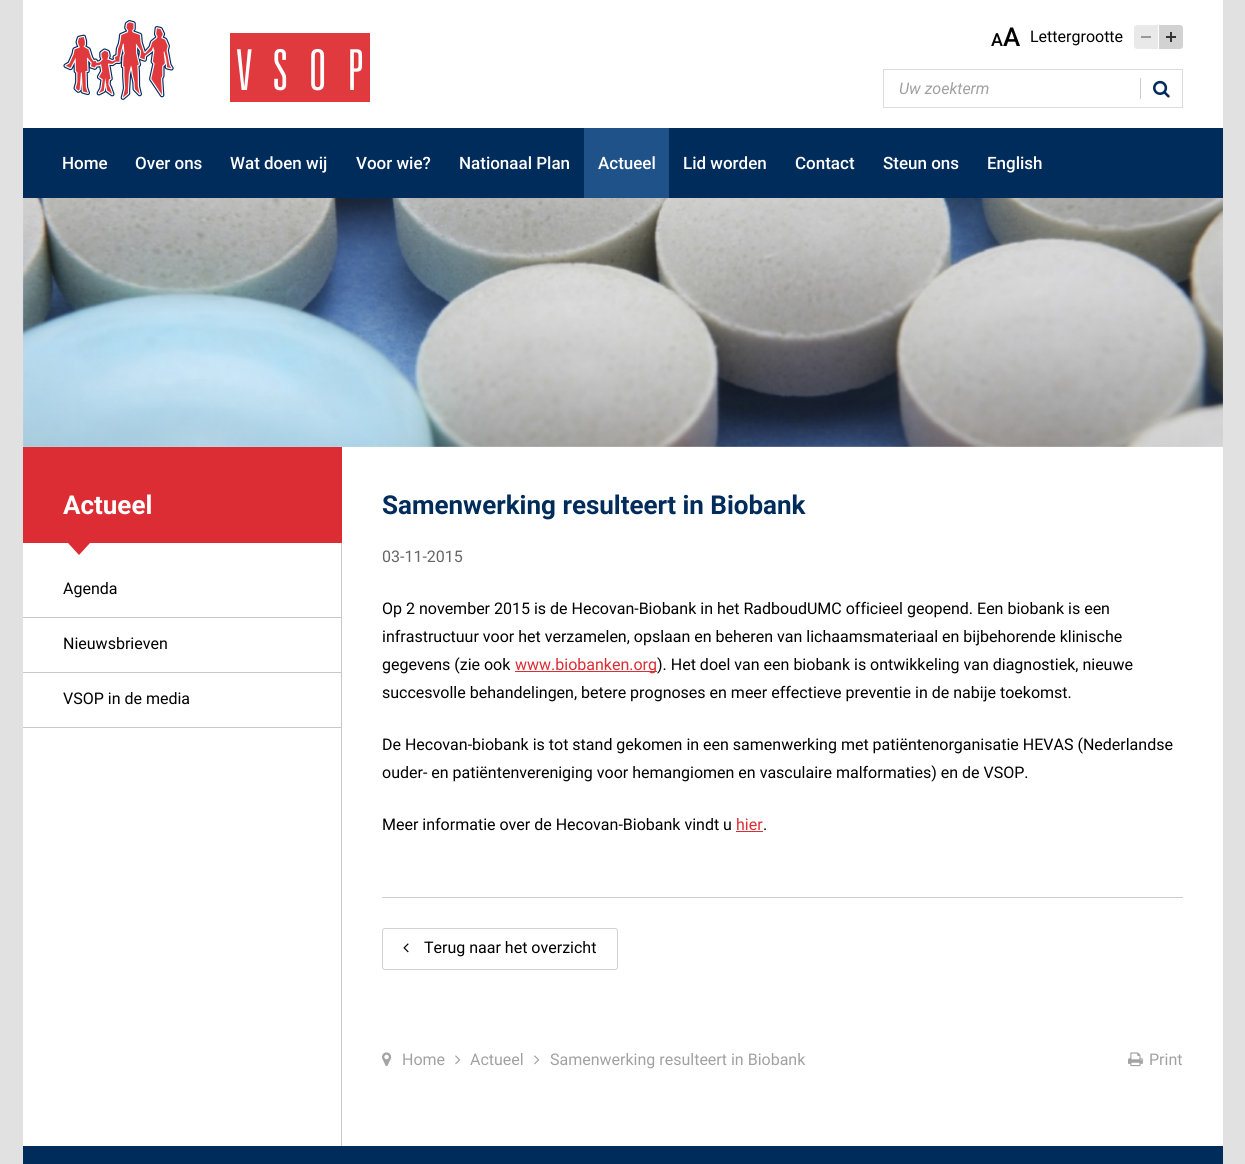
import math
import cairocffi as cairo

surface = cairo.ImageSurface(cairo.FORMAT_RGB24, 1245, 1164)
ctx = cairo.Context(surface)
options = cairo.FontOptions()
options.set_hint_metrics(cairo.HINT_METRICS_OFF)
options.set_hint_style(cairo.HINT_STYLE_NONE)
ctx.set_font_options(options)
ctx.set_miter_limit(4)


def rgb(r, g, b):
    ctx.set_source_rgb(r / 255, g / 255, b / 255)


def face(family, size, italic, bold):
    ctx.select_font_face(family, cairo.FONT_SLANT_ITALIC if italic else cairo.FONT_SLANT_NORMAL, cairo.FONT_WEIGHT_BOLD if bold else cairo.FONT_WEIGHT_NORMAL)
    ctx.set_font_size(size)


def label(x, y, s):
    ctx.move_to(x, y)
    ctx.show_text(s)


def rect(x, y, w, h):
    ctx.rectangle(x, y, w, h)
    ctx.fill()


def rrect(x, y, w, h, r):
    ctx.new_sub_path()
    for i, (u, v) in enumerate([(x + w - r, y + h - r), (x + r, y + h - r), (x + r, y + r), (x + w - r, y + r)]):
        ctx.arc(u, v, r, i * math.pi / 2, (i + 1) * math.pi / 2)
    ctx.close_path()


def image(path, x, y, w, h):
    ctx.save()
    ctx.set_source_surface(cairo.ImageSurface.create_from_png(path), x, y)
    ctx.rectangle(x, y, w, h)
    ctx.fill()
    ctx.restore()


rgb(225, 225, 225)
ctx.paint()
rgb(255, 255, 255)
rect(23, 0, 1200, 128)
image('image0.png', 63, 20, 307, 82)
face('Roboto Medium', 18, 0, 0)
rgb(0, 0, 0)
label(991, 46, 'A')
face('Roboto Medium', 26, 0, 0)
label(1003, 46, 'A')
face('Roboto', 16, 0, 0)
label(1030, 42, 'Lettergrootte')
rgb(233, 233, 233)
ctx.new_path()
ctx.move_to(1137, 25)
ctx.line_to(1158, 25)
ctx.line_to(1158, 49)
ctx.line_to(1137, 49)
ctx.curve_to(1135.5, 49, 1134, 47.5, 1134, 46)
ctx.line_to(1134, 28)
ctx.curve_to(1134, 26.5, 1135.5, 25, 1137, 25)
ctx.close_path()
ctx.fill()
rgb(153, 153, 153)
rect(1141, 36, 10, 2)
rgb(210, 210, 210)
ctx.new_path()
ctx.move_to(1159, 25)
ctx.line_to(1180, 25)
ctx.curve_to(1181.5, 25, 1183, 26.5, 1183, 28)
ctx.line_to(1183, 46)
ctx.curve_to(1183, 47.5, 1181.5, 49, 1180, 49)
ctx.line_to(1159, 49)
ctx.close_path()
ctx.fill()
rgb(51, 51, 51)
rect(1170, 32, 2, 10)
rect(1166, 36, 10, 2)
ctx.rectangle(883.5, 69.5, 299, 38)
rgb(220, 220, 220)
ctx.set_line_width(1)
ctx.stroke()
face('Roboto', 16, 1, 0)
rgb(161, 161, 161)
label(899, 94, 'Uw zoekterm')
rgb(204, 204, 204)
rect(1140, 78, 1, 21)
image('image1.png', 1153, 80, 17, 18)
rgb(0, 44, 92)
rect(23, 128, 1200, 70)
face('Roboto Medium', 17, 0, 0)
rgb(255, 255, 255)
label(62, 169, 'Home')
label(135, 169, 'Over ons')
label(230, 169, 'Wat doen wij')
label(356, 169, 'Voor wie?')
label(459, 169, 'Nationaal Plan')
rgb(31, 82, 137)
rect(584, 128, 85, 70)
rgb(255, 255, 255)
label(598, 169, 'Actueel')
label(683, 169, 'Lid worden')
label(795, 169, 'Contact')
label(883, 169, 'Steun ons')
label(987, 169, 'English')
image('image2.png', 22, 198, 1201, 249)
rect(23, 447, 1200, 699)
rgb(220, 44, 52)
rect(23, 447, 319, 96)
face('Roboto', 26, 0, 1)
rgb(255, 255, 255)
label(63, 514, 'Actueel')
rgb(220, 44, 52)
ctx.new_path()
ctx.move_to(68, 543)
ctx.line_to(90, 543)
ctx.line_to(79, 555)
ctx.close_path()
ctx.fill()
rgb(200, 200, 200)
rect(341, 543, 1, 603)
rect(23, 617, 319, 1)
face('Roboto', 16, 0, 0)
rgb(0, 0, 0)
label(63, 594, 'Agenda')
rgb(200, 200, 200)
rect(23, 672, 319, 1)
rgb(0, 0, 0)
label(63, 649, 'Nieuwsbrieven')
rgb(200, 200, 200)
rect(23, 727, 319, 1)
rgb(0, 0, 0)
label(63, 704, 'VSOP in de media')
face('Roboto', 26, 0, 1)
rgb(0, 44, 92)
label(382, 514, 'Samenwerking resulteert in Biobank')
face('Roboto', 16, 0, 0)
rgb(102, 102, 102)
label(382, 562, '03-11-2015')
rgb(0, 0, 0)
label(382, 614, 'Op 2 november 2015 is de Hecovan-Biobank in het RadboudUMC officieel geopend. Een biobank is een')
label(382, 642, 'infrastructuur voor het verzamelen, opslaan en beheren van lichaamsmateriaal en bijbehorende klinische')
label(382, 670, 'gegevens (zie ook')
rgb(220, 44, 52)
rect(515, 671, 142, 1)
label(515, 670, 'www.biobanken.org')
rgb(0, 0, 0)
label(657, 670, '). Het doel van een biobank is ontwikkeling van diagnostiek, nieuwe')
label(382, 698, 'succesvolle behandelingen, betere prognoses en meer effectieve preventie in de nabije toekomst.')
label(382, 750, 'De Hecovan-biobank is tot stand gekomen in een samenwerking met patiëntenorganisatie HEVAS (Nederlandse')
label(382, 778, 'ouder- en patiëntenvereniging voor hemangiomen en vasculaire malformaties) en de VSOP.')
label(382, 830, 'Meer informatie over de Hecovan-Biobank vindt u')
rgb(220, 44, 52)
label(736, 830, 'hier')
rect(736, 831, 27, 1)
rgb(0, 0, 0)
label(763, 830, '.')
rgb(204, 204, 204)
rect(382, 897, 801, 1)
rrect(382.5, 928.5, 235, 41, 2.5)
rgb(210, 210, 210)
ctx.stroke()
image('image3.png', 403, 943, 6, 10)
rgb(0, 0, 0)
label(424, 953, 'Terug naar het overzicht')
image('image4.png', 382, 1052, 10, 15)
rgb(161, 161, 161)
label(402, 1065, 'Home')
image('image5.png', 455, 1055, 6, 10)
label(470, 1065, 'Actueel')
image('image5.png', 534, 1055, 6, 10)
label(550, 1065, 'Samenwerking resulteert in Biobank')
image('image6.png', 1128, 1052, 15, 15)
label(1149, 1065, 'Print')
rgb(0, 44, 92)
rect(23, 1146, 1200, 18)
surface.write_to_png('render.png')
